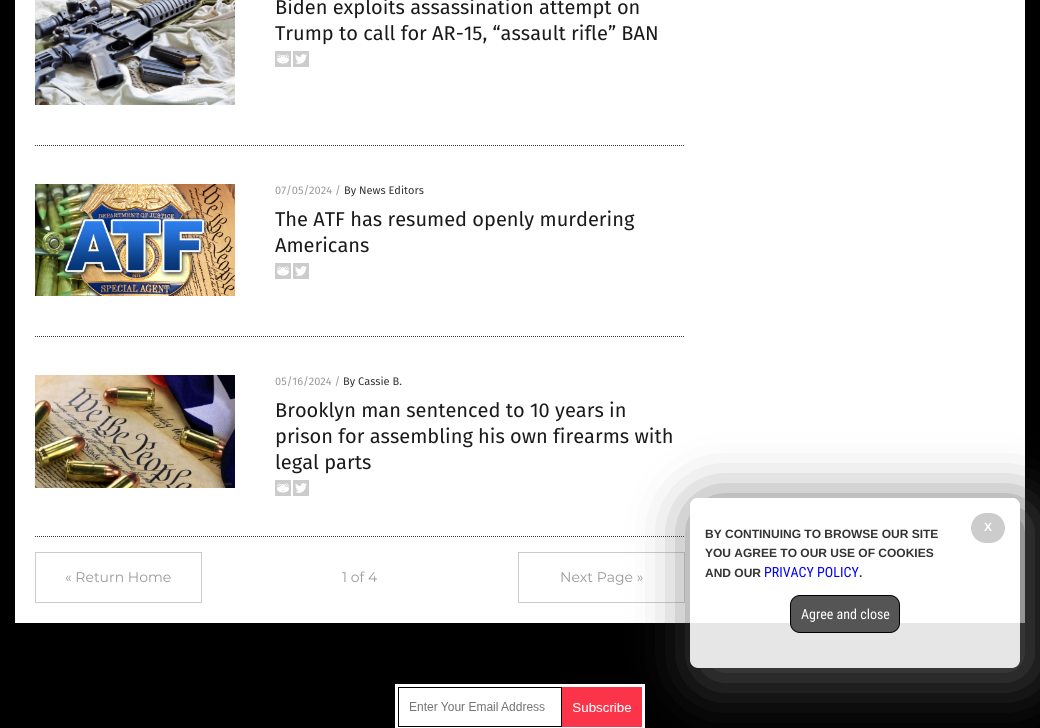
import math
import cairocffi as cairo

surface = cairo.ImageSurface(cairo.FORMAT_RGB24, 1040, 728)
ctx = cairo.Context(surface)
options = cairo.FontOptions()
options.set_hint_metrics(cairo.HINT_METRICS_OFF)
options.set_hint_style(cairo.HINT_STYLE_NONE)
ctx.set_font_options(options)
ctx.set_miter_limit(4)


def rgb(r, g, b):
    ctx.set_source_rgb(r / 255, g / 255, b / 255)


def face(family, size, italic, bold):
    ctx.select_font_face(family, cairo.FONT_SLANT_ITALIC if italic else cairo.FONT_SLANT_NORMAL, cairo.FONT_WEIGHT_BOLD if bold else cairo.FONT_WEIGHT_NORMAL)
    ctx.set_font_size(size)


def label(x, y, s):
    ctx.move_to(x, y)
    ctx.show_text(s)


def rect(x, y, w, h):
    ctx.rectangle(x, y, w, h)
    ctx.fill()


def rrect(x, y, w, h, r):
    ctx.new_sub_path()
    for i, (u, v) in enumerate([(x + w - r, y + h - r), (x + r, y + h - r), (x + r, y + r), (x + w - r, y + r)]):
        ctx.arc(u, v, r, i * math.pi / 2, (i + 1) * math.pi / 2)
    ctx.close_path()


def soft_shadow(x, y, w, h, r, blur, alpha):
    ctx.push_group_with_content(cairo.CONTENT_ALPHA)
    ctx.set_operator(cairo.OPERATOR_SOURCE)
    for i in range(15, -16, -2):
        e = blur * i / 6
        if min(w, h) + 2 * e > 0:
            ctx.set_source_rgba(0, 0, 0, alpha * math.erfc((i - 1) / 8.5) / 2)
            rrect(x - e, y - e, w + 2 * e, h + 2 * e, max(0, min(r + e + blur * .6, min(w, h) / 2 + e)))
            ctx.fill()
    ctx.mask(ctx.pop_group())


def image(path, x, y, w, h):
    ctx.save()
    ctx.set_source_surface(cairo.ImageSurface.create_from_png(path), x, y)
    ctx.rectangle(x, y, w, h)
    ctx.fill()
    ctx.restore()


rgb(0, 0, 0)
ctx.paint()
rgb(255, 255, 255)
rect(15, 0, 1010, 623)
ctx.new_path()
ctx.move_to(35, 145.5)
ctx.line_to(685, 145.5)
rgb(52, 52, 52)
ctx.set_line_width(1)
ctx.set_dash([1, 1])
ctx.stroke()
image('image0.png', 35, 0, 200, 105)
face('Fira Sans', 20, 0, 0)
rgb(26, 26, 26)
label(275, 14, 'Biden exploits assassination attempt on')
label(275, 40, 'Trump to call for AR-15, “assault rifle” BAN')
image('image1.png', 275, 51, 16, 16)
image('image2.png', 293, 51, 16, 16)
ctx.new_path()
ctx.move_to(35, 336.5)
ctx.line_to(685, 336.5)
rgb(52, 52, 52)
ctx.stroke()
image('image3.png', 35, 184, 200, 112)
face('Fira Sans', 11, 0, 0)
rgb(153, 153, 153)
label(275, 194, '07/05/2024 /')
rgb(51, 51, 51)
label(344, 194, 'By News Editors')
face('Fira Sans', 20, 0, 0)
rgb(26, 26, 26)
label(275, 226, 'The ATF has resumed openly murdering')
label(275, 252, 'Americans')
image('image1.png', 275, 263, 16, 16)
image('image2.png', 293, 263, 16, 16)
ctx.new_path()
ctx.move_to(35, 536.5)
ctx.line_to(685, 536.5)
rgb(52, 52, 52)
ctx.stroke()
image('image4.png', 35, 375, 200, 113)
face('Fira Sans', 11, 0, 0)
rgb(153, 153, 153)
label(275, 385, '05/16/2024 /')
rgb(51, 51, 51)
label(343, 385, 'By Cassie B.')
face('Fira Sans', 20, 0, 0)
rgb(26, 26, 26)
label(275, 417, 'Brooklyn man sentenced to 10 years in')
label(275, 443, 'prison for assembling his own firearms with')
label(275, 469, 'legal parts')
image('image1.png', 275, 480, 16, 16)
image('image2.png', 293, 480, 16, 16)
ctx.rectangle(35.5, 552.5, 166, 50)
rgb(204, 204, 204)
ctx.set_dash([])
ctx.stroke()
face('Montserrat', 14, 0, 0)
rgb(153, 153, 153)
label(65, 582, '« Return Home')
label(342, 582, '1 of 4')
ctx.rectangle(518.5, 552.5, 166, 50)
rgb(204, 204, 204)
ctx.stroke()
rgb(153, 153, 153)
label(560, 582, 'Next Page »')
image('image5.png', 395, 684, 250, 44)
ctx.save()
ctx.set_fill_rule(cairo.FILL_RULE_EVEN_ODD)
ctx.new_path()
ctx.move_to(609, 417)
ctx.line_to(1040, 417)
ctx.line_to(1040, 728)
ctx.line_to(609, 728)
ctx.close_path()
ctx.move_to(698, 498)
ctx.line_to(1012, 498)
ctx.curve_to(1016.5, 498, 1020, 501.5, 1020, 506)
ctx.line_to(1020, 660)
ctx.curve_to(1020, 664.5, 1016.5, 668, 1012, 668)
ctx.line_to(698, 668)
ctx.curve_to(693.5, 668, 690, 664.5, 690, 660)
ctx.line_to(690, 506)
ctx.curve_to(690, 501.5, 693.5, 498, 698, 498)
ctx.close_path()
ctx.clip()
rgb(85, 85, 85)
soft_shadow(700, 508, 330, 170, 8, 30, 1)
ctx.restore()
ctx.set_source_rgba(1, 1, 1, 0.9)
rrect(690, 498, 330, 170, 8)
ctx.fill()
rgb(204, 204, 204)
rrect(971, 513, 34, 30, 15)
ctx.fill()
face('Liberation Sans', 12, 0, 1)
rgb(255, 255, 255)
label(984, 531, 'X')
rgb(51, 51, 51)
label(705, 538, 'BY CONTINUING TO BROWSE OUR SITE')
label(705, 557, 'YOU AGREE TO OUR USE OF COOKIES')
label(705, 577, 'AND OUR')
face('Roboto Condensed', 14, 0, 0)
rgb(0, 0, 255)
label(764, 577, 'PRIVACY POLICY')
face('Liberation Sans', 12, 0, 1)
rgb(51, 51, 51)
label(859, 577, '.')
rgb(85, 85, 85)
rrect(790.5, 595.5, 109, 37, 9.5)
ctx.fill_preserve()
rgb(0, 0, 0)
ctx.stroke()
face('Roboto Condensed', 14, 0, 0)
rgb(255, 255, 255)
label(801, 619, 'Agree and close')
surface.write_to_png('render.png')
